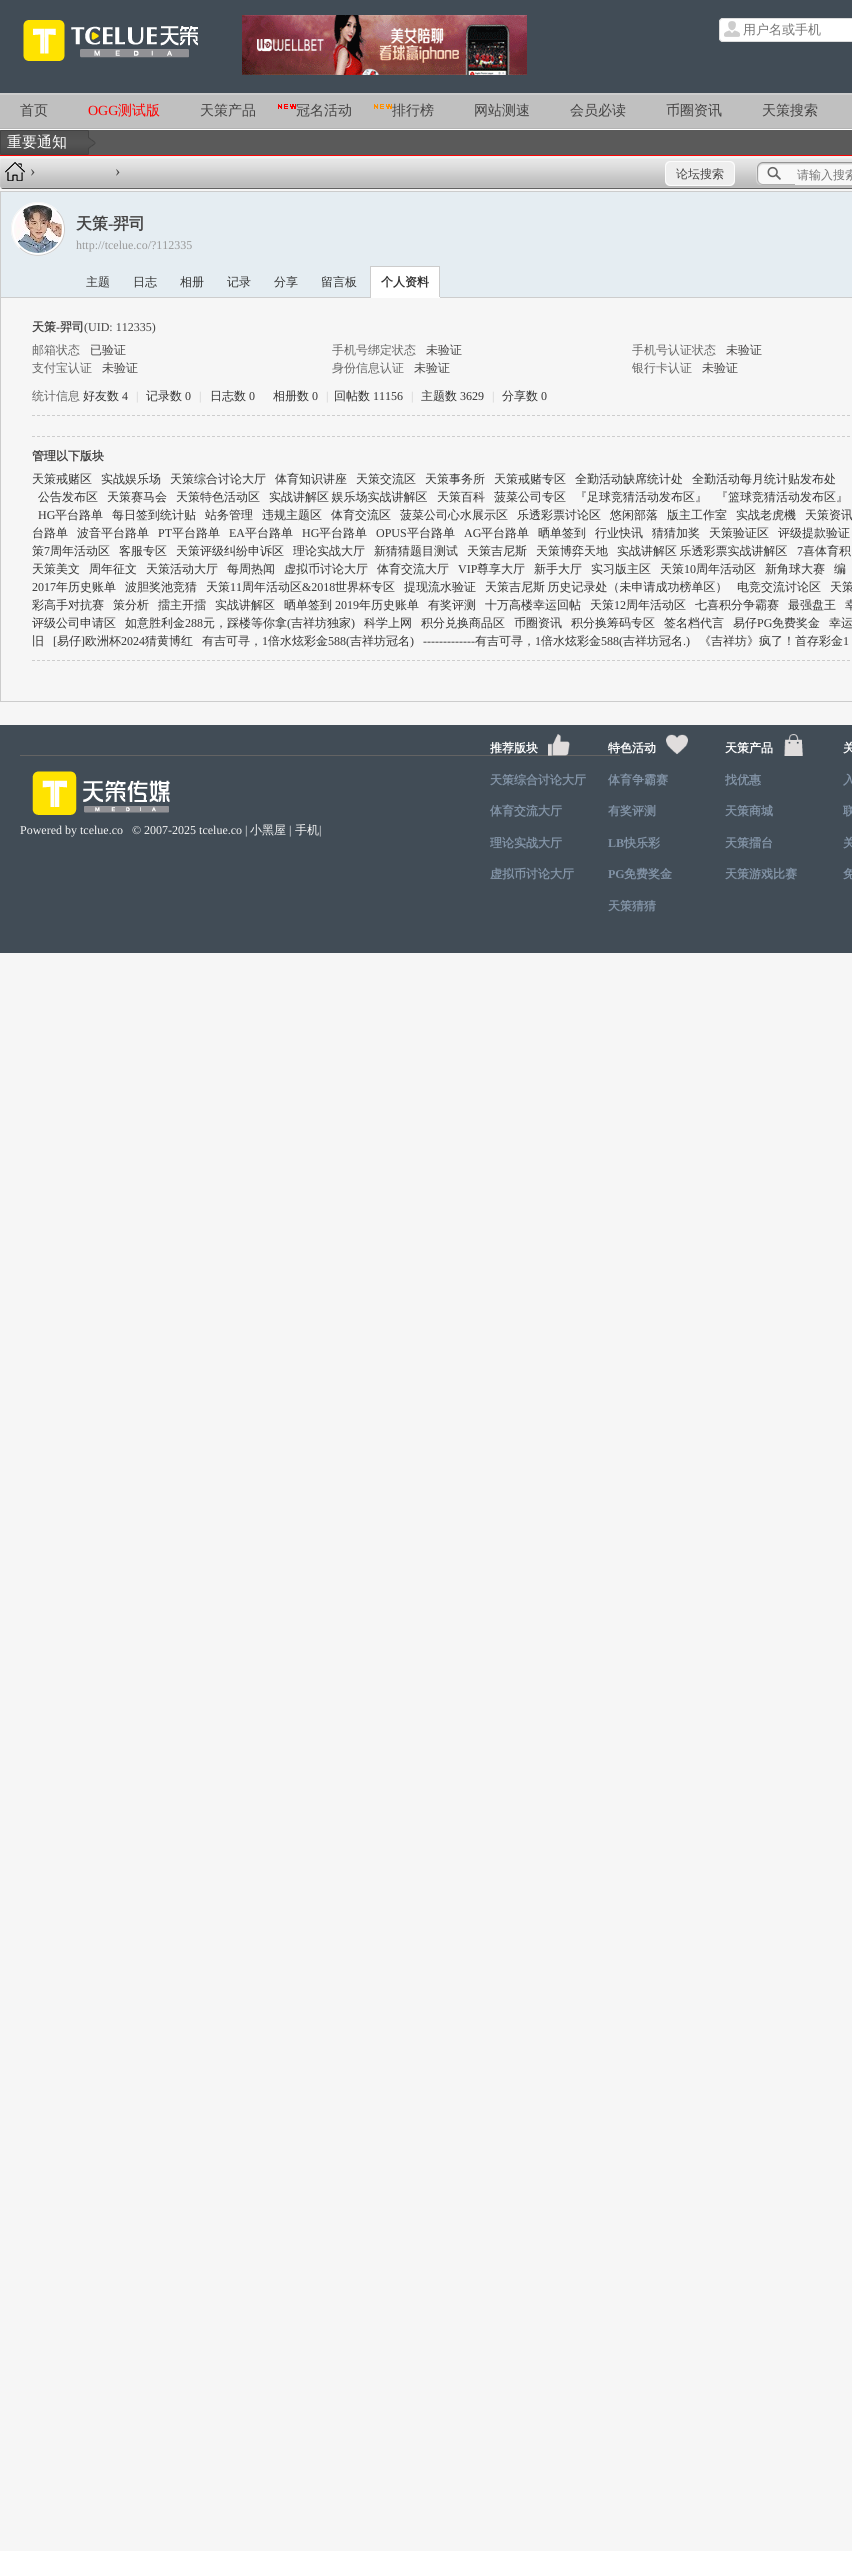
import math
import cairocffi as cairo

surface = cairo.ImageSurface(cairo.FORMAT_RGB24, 852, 2551)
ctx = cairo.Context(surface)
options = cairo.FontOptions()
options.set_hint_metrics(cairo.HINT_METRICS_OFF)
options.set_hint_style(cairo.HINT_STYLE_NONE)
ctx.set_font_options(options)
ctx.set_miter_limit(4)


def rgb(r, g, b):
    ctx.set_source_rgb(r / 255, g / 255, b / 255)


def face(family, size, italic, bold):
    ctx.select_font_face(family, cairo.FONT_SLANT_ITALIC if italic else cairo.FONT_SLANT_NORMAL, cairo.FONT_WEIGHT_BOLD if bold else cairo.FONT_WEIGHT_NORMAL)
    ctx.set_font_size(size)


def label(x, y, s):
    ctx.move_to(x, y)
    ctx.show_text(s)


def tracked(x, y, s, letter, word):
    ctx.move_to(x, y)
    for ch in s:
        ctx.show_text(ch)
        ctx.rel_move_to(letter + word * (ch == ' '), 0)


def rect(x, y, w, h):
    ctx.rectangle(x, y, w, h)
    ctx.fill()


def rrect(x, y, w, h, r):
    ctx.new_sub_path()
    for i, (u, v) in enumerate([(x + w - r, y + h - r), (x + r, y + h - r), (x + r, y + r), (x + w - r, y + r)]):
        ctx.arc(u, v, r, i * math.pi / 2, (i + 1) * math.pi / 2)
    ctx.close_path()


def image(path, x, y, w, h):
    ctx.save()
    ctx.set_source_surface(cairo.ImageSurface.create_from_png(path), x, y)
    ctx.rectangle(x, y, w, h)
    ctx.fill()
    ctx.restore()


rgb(246, 246, 246)
ctx.paint()
rgb(180, 180, 180)
rect(0, 128, 852, 1)
image('image0.png', 0, 0, 852, 128)
image('image1.png', 23, 20, 175, 41)
image('image2.png', 242, 15, 285, 60)
rgb(255, 255, 255)
rrect(719, 18, 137, 24, 4)
ctx.fill()
image('image3.png', 724, 21, 16, 16)
rrect(719.5, 18.5, 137, 23, 3.5)
rgb(220, 220, 220)
ctx.set_line_width(1)
ctx.stroke()
face('WenQuanYi Zen Hei Medium', 13, 0, 0)
rgb(117, 117, 117)
label(743, 34, '用户名或手机')
rgb(205, 205, 205)
rect(0, 93, 852, 2)
face('WenQuanYi Zen Hei Medium', 14, 0, 0)
rgb(68, 67, 67)
label(20, 115, '首页')
face('Liberation Serif', 14, 0, 0)
rgb(255, 0, 0)
label(88, 115, 'OGG')
face('WenQuanYi Zen Hei Medium', 14, 0, 0)
label(118, 115, '测试版')
rgb(68, 67, 67)
label(200, 115, '天策产品')
image('image4.png', 278, 104, 18, 5)
label(296, 115, '冠名活动')
image('image5.png', 374, 104, 18, 5)
label(392, 115, '排行榜')
label(474, 115, '网站测速')
label(570, 115, '会员必读')
label(666, 115, '币圈资讯')
label(762, 115, '天策搜索')
rgb(90, 90, 90)
rect(0, 130, 852, 25)
rgb(255, 255, 255)
rect(0, 129, 852, 1)
rgb(252, 4, 4)
rect(0, 155, 852, 1)
image('image6.png', 0, 130, 96, 25)
face('WenQuanYi Zen Hei Medium', 15, 0, 0)
rgb(255, 255, 255)
label(7, 147, '重要通知')
rgb(242, 242, 242)
rect(0, 156, 852, 2)
image('image7.png', 0, 158, 12, 31)
image('image8.png', 12, 158, 723, 31)
rgb(252, 252, 252)
rrect(665, 161, 70, 25, 5)
ctx.fill()
rgb(238, 238, 238)
rrect(666, 162, 68, 23, 5)
ctx.fill()
face('WenQuanYi Zen Hei Medium', 12, 0, 0)
rgb(68, 67, 67)
label(676, 178, '论坛搜索')
image('image9.png', 735, 158, 60, 31)
image('image10.png', 795, 158, 57, 31)
rgb(248, 248, 248)
rect(795, 184, 57, 1)
rgb(117, 117, 117)
label(797, 179, '请输入搜索')
image('image11.png', 5, 162, 20, 19)
face('Liberation Serif', 16, 0, 0)
rgb(68, 67, 67)
label(30, 176, '›')
label(115, 176, '›')
rgb(229, 237, 242)
rect(1, 192, 851, 105)
rgb(204, 204, 204)
rect(0, 191, 852, 1)
rect(0, 191, 1, 107)
rgb(255, 255, 255)
ctx.new_path()
ctx.arc(38, 229, 27, 0, 2 * math.pi)
ctx.fill()
ctx.new_path()
ctx.move_to(56.5, 210.5)
ctx.curve_to(60.5, 214, 63, 218.5, 64, 224)
ctx.curve_to(69, 249.5, 37.5, 266, 19.5, 247.5)
rgb(205, 205, 205)
ctx.stroke()
ctx.new_path()
ctx.move_to(19.5, 247.5)
ctx.curve_to(15.5, 244, 13, 239.5, 12, 234)
ctx.curve_to(7, 208.5, 38.5, 192, 56.5, 210.5)
rgb(242, 242, 242)
ctx.stroke()
image('image12.png', 14, 205, 48, 48)
face('WenQuanYi Zen Hei', 16, 0, 1)
rgb(68, 67, 67)
label(76, 229, '天策')
face('Liberation Serif', 16, 0, 1)
label(108, 229, '-')
face('WenQuanYi Zen Hei', 16, 0, 1)
label(113, 229, '羿司')
face('Liberation Serif', 12, 0, 0)
rgb(153, 153, 153)
label(76, 249, 'http://tcelue.co/?112335')
rgb(205, 205, 205)
rect(1, 297, 851, 1)
face('WenQuanYi Zen Hei Medium', 12, 0, 0)
rgb(51, 51, 51)
label(86, 286, '主题')
label(133, 286, '日志')
label(180, 286, '相册')
label(227, 286, '记录')
label(274, 286, '分享')
label(321, 286, '留言板')
rgb(255, 255, 255)
rect(371, 267, 68, 30)
rgb(204, 204, 204)
rect(370, 266, 70, 1)
rect(439, 266, 1, 32)
rgb(255, 255, 255)
rect(370, 297, 70, 1)
rgb(204, 204, 204)
rect(370, 266, 1, 32)
face('WenQuanYi Zen Hei', 12, 0, 1)
rgb(51, 51, 51)
label(381, 286, '个人资料')
rgb(204, 204, 204)
rect(0, 701, 852, 1)
rect(0, 298, 1, 404)
ctx.new_path()
ctx.move_to(32, 436.5)
ctx.line_to(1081, 436.5)
rgb(205, 205, 205)
ctx.set_dash([3, 2])
ctx.stroke()
rgb(68, 67, 67)
label(32, 331, '天策')
face('Liberation Serif', 12, 0, 1)
label(56, 331, '-')
face('WenQuanYi Zen Hei', 12, 0, 1)
label(60, 331, '羿司')
face('Liberation Serif', 12, 0, 0)
label(84, 331, '(UID: 112335)')
face('WenQuanYi Zen Hei Medium', 12, 0, 0)
rgb(102, 102, 102)
label(32, 354, '邮箱状态')
rgb(68, 67, 67)
label(90, 354, '已验证')
rgb(102, 102, 102)
label(332, 354, '手机号绑定状态')
rgb(68, 67, 67)
label(426, 354, '未验证')
rgb(102, 102, 102)
label(632, 354, '手机号认证状态')
rgb(68, 67, 67)
label(726, 354, '未验证')
rgb(102, 102, 102)
label(32, 372, '支付宝认证')
rgb(68, 67, 67)
label(102, 372, '未验证')
rgb(102, 102, 102)
label(332, 372, '身份信息认证')
rgb(68, 67, 67)
label(414, 372, '未验证')
rgb(102, 102, 102)
label(632, 372, '银行卡认证')
rgb(68, 67, 67)
label(702, 372, '未验证')
ctx.new_path()
ctx.move_to(32, 415.5)
ctx.line_to(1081, 415.5)
rgb(205, 205, 205)
ctx.stroke()
rgb(102, 102, 102)
label(32, 400, '统计信息')
rgb(51, 51, 51)
label(83, 400, '好友数')
face('Liberation Serif', 12, 0, 0)
label(122, 400, '4')
rgb(204, 204, 204)
label(136, 400, '|')
face('WenQuanYi Zen Hei Medium', 12, 0, 0)
rgb(51, 51, 51)
label(146, 400, '记录数')
face('Liberation Serif', 12, 0, 0)
label(185, 400, '0')
rgb(204, 204, 204)
label(199, 400, '|')
face('WenQuanYi Zen Hei Medium', 12, 0, 0)
rgb(51, 51, 51)
label(210, 400, '日志数')
face('Liberation Serif', 12, 0, 0)
label(249, 400, '0')
face('WenQuanYi Zen Hei Medium', 12, 0, 0)
label(273, 400, '相册数')
face('Liberation Serif', 12, 0, 0)
label(312, 400, '0')
rgb(204, 204, 204)
label(326, 400, '|')
face('WenQuanYi Zen Hei Medium', 12, 0, 0)
rgb(51, 51, 51)
label(334, 400, '回帖数')
face('Liberation Serif', 12, 0, 0)
label(373, 400, '11156')
rgb(204, 204, 204)
label(411, 400, '|')
face('WenQuanYi Zen Hei Medium', 12, 0, 0)
rgb(51, 51, 51)
label(421, 400, '主题数')
face('Liberation Serif', 12, 0, 0)
label(460, 400, '3629')
rgb(204, 204, 204)
label(492, 400, '|')
face('WenQuanYi Zen Hei Medium', 12, 0, 0)
rgb(51, 51, 51)
label(502, 400, '分享数')
face('Liberation Serif', 12, 0, 0)
label(541, 400, '0')
ctx.new_path()
ctx.move_to(32, 660.5)
ctx.line_to(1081, 660.5)
rgb(205, 205, 205)
ctx.stroke()
face('WenQuanYi Zen Hei', 12, 0, 1)
rgb(68, 67, 67)
label(32, 460, '管理以下版块')
face('WenQuanYi Zen Hei Medium', 12, 0, 0)
rgb(51, 51, 51)
label(32, 483, '天策戒赌区')
label(101, 483, '实战娱乐场')
label(170, 483, '天策综合讨论大厅')
label(275, 483, '体育知识讲座')
label(356, 483, '天策交流区')
label(425, 483, '天策事务所')
label(494, 483, '天策戒赌专区')
label(575, 483, '全勤活动缺席统计处')
label(692, 483, '全勤活动每月统计贴发布处')
label(38, 501, '公告发布区')
label(107, 501, '天策赛马会')
label(176, 501, '天策特色活动区')
tracked(269, 501, '实战讲解区 娱乐场实战讲解区', 0, -1)
label(437, 501, '天策百科')
label(494, 501, '菠菜公司专区')
label(575, 501, '『足球竞猜活动发布区』')
label(716, 501, '『篮球竞猜活动发布区』')
face('Liberation Serif', 12, 0, 0)
label(38, 519, 'HG')
face('WenQuanYi Zen Hei Medium', 12, 0, 0)
label(55, 519, '平台路单')
label(112, 519, '每日签到统计贴')
label(205, 519, '站务管理')
label(262, 519, '违规主题区')
label(331, 519, '体育交流区')
label(400, 519, '菠菜公司心水展示区')
label(517, 519, '乐透彩票讨论区')
label(610, 519, '悠闲部落')
label(667, 519, '版主工作室')
label(736, 519, '实战老虎機')
label(805, 519, '天策资讯')
label(32, 537, '台路单')
label(77, 537, '波音平台路单')
face('Liberation Serif', 12, 0, 0)
label(158, 537, 'PT')
face('WenQuanYi Zen Hei Medium', 12, 0, 0)
label(172, 537, '平台路单')
face('Liberation Serif', 12, 0, 0)
label(229, 537, 'EA')
face('WenQuanYi Zen Hei Medium', 12, 0, 0)
label(245, 537, '平台路单')
face('Liberation Serif', 12, 0, 0)
label(302, 537, 'HG')
face('WenQuanYi Zen Hei Medium', 12, 0, 0)
label(319, 537, '平台路单')
face('Liberation Serif', 12, 0, 0)
label(376, 537, 'OPUS')
face('WenQuanYi Zen Hei Medium', 12, 0, 0)
label(407, 537, '平台路单')
face('Liberation Serif', 12, 0, 0)
label(464, 537, 'AG')
face('WenQuanYi Zen Hei Medium', 12, 0, 0)
label(481, 537, '平台路单')
label(538, 537, '晒单签到')
label(595, 537, '行业快讯')
label(652, 537, '猜猜加奖')
label(709, 537, '天策验证区')
label(778, 537, '评级提款验证')
label(32, 555, '策')
face('Liberation Serif', 12, 0, 0)
label(44, 555, '7')
face('WenQuanYi Zen Hei Medium', 12, 0, 0)
label(50, 555, '周年活动区')
label(119, 555, '客服专区')
label(176, 555, '天策评级纠纷申诉区')
label(293, 555, '理论实战大厅')
label(374, 555, '新猜猜题目测试')
label(467, 555, '天策吉尼斯')
label(536, 555, '天策博弈天地')
tracked(617, 555, '实战讲解区 乐透彩票实战讲解区', 0, -1)
face('Liberation Serif', 12, 0, 0)
label(797, 555, '7')
face('WenQuanYi Zen Hei Medium', 12, 0, 0)
label(803, 555, '喜体育积')
label(32, 573, '天策美文')
label(89, 573, '周年征文')
label(146, 573, '天策活动大厅')
label(227, 573, '每周热闻')
label(284, 573, '虚拟币讨论大厅')
label(377, 573, '体育交流大厅')
face('Liberation Serif', 12, 0, 0)
label(458, 573, 'VIP')
face('WenQuanYi Zen Hei Medium', 12, 0, 0)
label(477, 573, '尊享大厅')
label(534, 573, '新手大厅')
label(591, 573, '实习版主区')
label(660, 573, '天策')
face('Liberation Serif', 12, 0, 0)
label(684, 573, '10')
face('WenQuanYi Zen Hei Medium', 12, 0, 0)
label(696, 573, '周年活动区')
label(765, 573, '新角球大赛')
label(834, 573, '编')
face('Liberation Serif', 12, 0, 0)
label(32, 591, '2017')
face('WenQuanYi Zen Hei Medium', 12, 0, 0)
label(56, 591, '年历史账单')
label(125, 591, '波胆奖池竞猜')
label(206, 591, '天策')
face('Liberation Serif', 12, 0, 0)
label(230, 591, '11')
face('WenQuanYi Zen Hei Medium', 12, 0, 0)
label(242, 591, '周年活动区')
face('Liberation Serif', 12, 0, 0)
label(302, 591, '&2018')
face('WenQuanYi Zen Hei Medium', 12, 0, 0)
label(335, 591, '世界杯专区')
label(404, 591, '提现流水验证')
tracked(485, 591, '天策吉尼斯 历史记录处（未申请成功榜单区）', 0, -1)
label(737, 591, '电竞交流讨论区')
label(830, 591, '天策')
label(32, 609, '彩高手对抗赛')
label(113, 609, '策分析')
label(158, 609, '擂主开擂')
label(215, 609, '实战讲解区')
label(284, 609, '晒单签到')
face('Liberation Serif', 12, 0, 0)
label(335, 609, '2019')
face('WenQuanYi Zen Hei Medium', 12, 0, 0)
label(359, 609, '年历史账单')
label(428, 609, '有奖评测')
label(485, 609, '十万高楼幸运回帖')
label(590, 609, '天策')
face('Liberation Serif', 12, 0, 0)
label(614, 609, '12')
face('WenQuanYi Zen Hei Medium', 12, 0, 0)
label(626, 609, '周年活动区')
label(695, 609, '七喜积分争霸赛')
label(788, 609, '最强盘王')
label(845, 609, '幸')
label(32, 627, '评级公司申请区')
label(125, 627, '如意胜利金')
face('Liberation Serif', 12, 0, 0)
label(185, 627, '288')
face('WenQuanYi Zen Hei Medium', 12, 0, 0)
label(203, 627, '元，踩楼等你拿')
face('Liberation Serif', 12, 0, 0)
label(287, 627, '(')
face('WenQuanYi Zen Hei Medium', 12, 0, 0)
label(291, 627, '吉祥坊独家')
face('Liberation Serif', 12, 0, 0)
label(351, 627, ')')
face('WenQuanYi Zen Hei Medium', 12, 0, 0)
label(364, 627, '科学上网')
label(421, 627, '积分兑换商品区')
label(514, 627, '币圈资讯')
label(571, 627, '积分换筹码专区')
label(664, 627, '签名档代言')
label(733, 627, '易仔')
face('Liberation Serif', 12, 0, 0)
label(757, 627, 'PG')
face('WenQuanYi Zen Hei Medium', 12, 0, 0)
label(772, 627, '免费奖金')
label(829, 627, '幸运')
label(32, 645, '旧')
face('Liberation Serif', 12, 0, 0)
label(53, 645, '[')
face('WenQuanYi Zen Hei Medium', 12, 0, 0)
label(57, 645, '易仔')
face('Liberation Serif', 12, 0, 0)
label(81, 645, ']')
face('WenQuanYi Zen Hei Medium', 12, 0, 0)
label(85, 645, '欧洲杯')
face('Liberation Serif', 12, 0, 0)
label(121, 645, '2024')
face('WenQuanYi Zen Hei Medium', 12, 0, 0)
label(145, 645, '猜黄博红')
label(202, 645, '有吉可寻，')
face('Liberation Serif', 12, 0, 0)
label(262, 645, '1')
face('WenQuanYi Zen Hei Medium', 12, 0, 0)
label(268, 645, '倍水炫彩金')
face('Liberation Serif', 12, 0, 0)
label(328, 645, '588(')
face('WenQuanYi Zen Hei Medium', 12, 0, 0)
label(350, 645, '吉祥坊冠名')
face('Liberation Serif', 12, 0, 0)
label(410, 645, ')')
label(423, 645, '-------------')
face('WenQuanYi Zen Hei Medium', 12, 0, 0)
label(475, 645, '有吉可寻，')
face('Liberation Serif', 12, 0, 0)
label(535, 645, '1')
face('WenQuanYi Zen Hei Medium', 12, 0, 0)
label(541, 645, '倍水炫彩金')
face('Liberation Serif', 12, 0, 0)
label(601, 645, '588(')
face('WenQuanYi Zen Hei Medium', 12, 0, 0)
label(623, 645, '吉祥坊冠名')
face('Liberation Serif', 12, 0, 0)
label(683, 645, '.)')
face('WenQuanYi Zen Hei Medium', 12, 0, 0)
label(699, 645, '《吉祥坊》疯了！首存彩金')
face('Liberation Serif', 12, 0, 0)
label(843, 645, '1')
rgb(65, 76, 86)
rect(0, 725, 852, 228)
rgb(99, 99, 99)
rect(20, 755, 600, 1)
image('image13.png', 32, 771, 138, 44)
rgb(246, 246, 246)
label(20, 834, 'Powered by tcelue.co')
label(132, 834, '© 2007-2025 tcelue.co |')
face('WenQuanYi Zen Hei Medium', 12, 0, 0)
label(250, 834, '小黑屋')
face('Liberation Serif', 12, 0, 0)
label(289, 834, '|')
face('WenQuanYi Zen Hei Medium', 12, 0, 0)
label(295, 834, '手机')
face('Liberation Serif', 12, 0, 0)
label(319, 834, '|')
image('image14.png', 548, 734, 22, 22)
face('WenQuanYi Zen Hei', 12, 0, 1)
rgb(255, 255, 255)
label(490, 752, '推荐版块')
image('image15.png', 666, 734, 22, 21)
label(608, 752, '特色活动')
image('image16.png', 784, 734, 19, 22)
label(725, 752, '天策产品')
label(843, 752, '关')
rgb(130, 147, 166)
label(490, 784, '天策综合讨论大厅')
label(608, 784, '体育争霸赛')
label(725, 784, '找优惠')
label(843, 784, '入')
label(490, 815, '体育交流大厅')
label(608, 815, '有奖评测')
label(725, 815, '天策商城')
label(843, 815, '联')
label(490, 847, '理论实战大厅')
face('Liberation Serif', 12, 0, 1)
label(608, 847, 'LB')
face('WenQuanYi Zen Hei', 12, 0, 1)
label(624, 847, '快乐彩')
label(725, 847, '天策擂台')
label(843, 847, '关')
label(490, 878, '虚拟币讨论大厅')
face('Liberation Serif', 12, 0, 1)
label(608, 878, 'PG')
face('WenQuanYi Zen Hei', 12, 0, 1)
label(624, 878, '免费奖金')
label(725, 878, '天策游戏比赛')
label(843, 878, '免')
label(608, 910, '天策猜猜')
surface.write_to_png('render.png')
